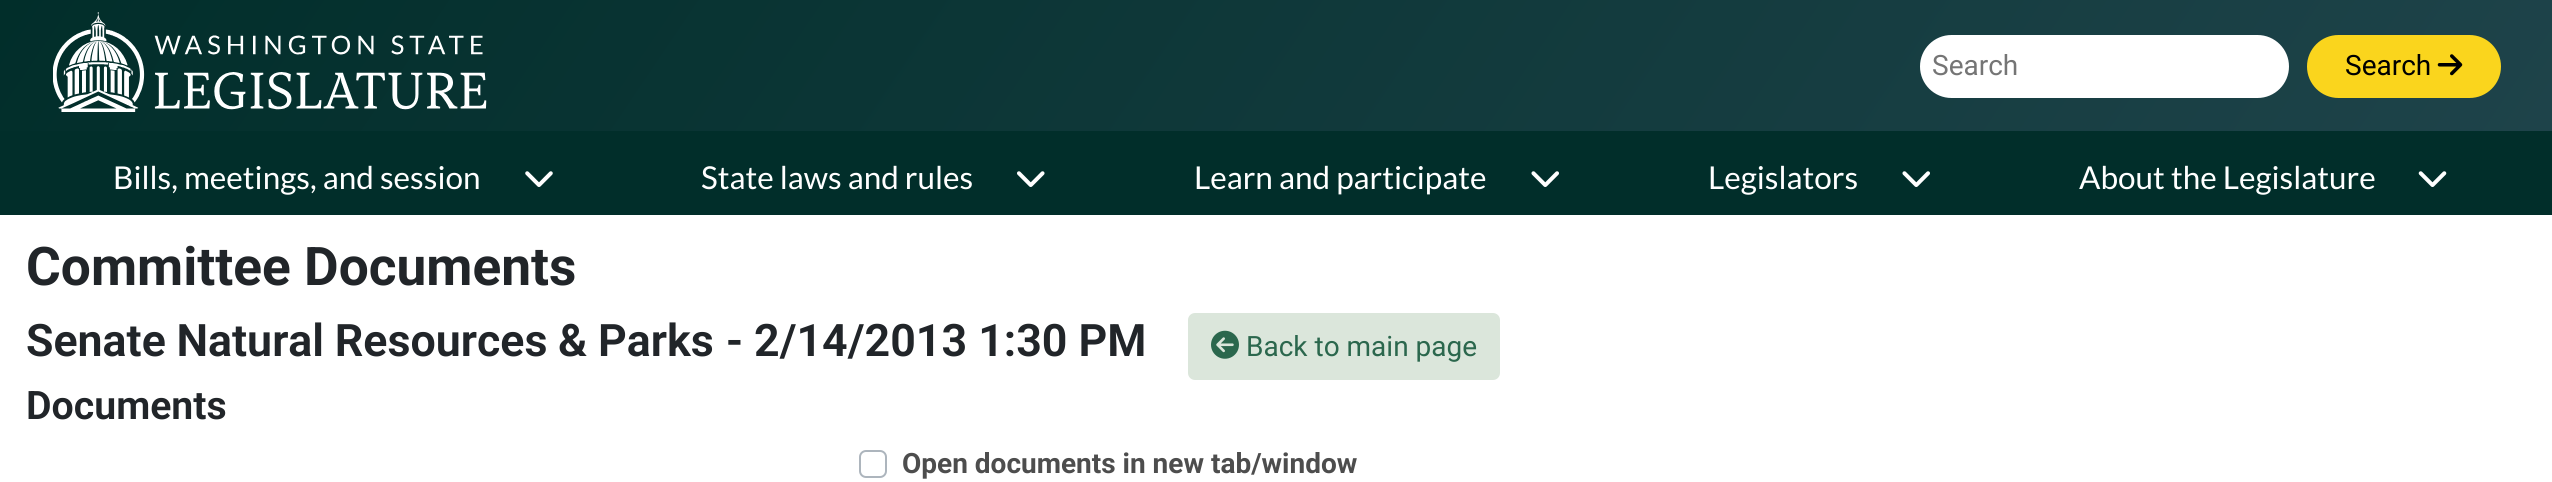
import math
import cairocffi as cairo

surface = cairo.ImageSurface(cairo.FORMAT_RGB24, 2552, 482)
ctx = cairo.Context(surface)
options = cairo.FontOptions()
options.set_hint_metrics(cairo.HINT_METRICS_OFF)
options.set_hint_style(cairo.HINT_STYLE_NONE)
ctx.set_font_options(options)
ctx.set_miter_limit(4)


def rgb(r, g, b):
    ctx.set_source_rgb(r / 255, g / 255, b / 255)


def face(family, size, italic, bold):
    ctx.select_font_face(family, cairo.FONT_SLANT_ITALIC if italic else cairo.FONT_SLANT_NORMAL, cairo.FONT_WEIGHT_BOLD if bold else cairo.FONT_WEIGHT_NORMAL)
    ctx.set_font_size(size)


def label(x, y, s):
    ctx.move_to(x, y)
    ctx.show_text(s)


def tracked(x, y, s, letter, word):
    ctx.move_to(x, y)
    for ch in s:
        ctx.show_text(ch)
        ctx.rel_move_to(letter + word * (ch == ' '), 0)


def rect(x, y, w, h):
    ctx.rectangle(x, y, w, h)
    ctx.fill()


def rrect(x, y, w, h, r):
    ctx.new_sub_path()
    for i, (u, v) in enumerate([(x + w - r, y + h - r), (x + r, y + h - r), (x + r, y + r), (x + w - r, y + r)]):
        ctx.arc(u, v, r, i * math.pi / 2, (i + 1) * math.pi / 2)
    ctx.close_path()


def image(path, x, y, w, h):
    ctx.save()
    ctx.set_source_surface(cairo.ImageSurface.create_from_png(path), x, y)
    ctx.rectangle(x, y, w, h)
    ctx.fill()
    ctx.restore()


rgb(255, 255, 255)
ctx.paint()
rgb(1, 46, 42)
rect(0, 131, 2552, 84)
gradient = cairo.LinearGradient(2184, 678, 369, -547)
gradient.add_color_stop_rgba(0, 0.118, 0.263, 0.29, 1)
gradient.add_color_stop_rgba(1, 0.004, 0.18, 0.165, 1)
ctx.set_source(gradient)
rect(0, 0, 2552, 131)
image('image0.png', 53, 12, 434, 100)
rgb(255, 255, 255)
rrect(1922, 37, 365, 59, 29.5)
ctx.fill_preserve()
ctx.set_line_width(4)
ctx.stroke()
face('Roboto', 28, 0, 0)
rgb(117, 117, 117)
label(1932, 75, 'Search')
rgb(250, 213, 29)
rrect(2309, 37, 190, 59, 29.5)
ctx.fill_preserve()
ctx.stroke()
rgb(0, 0, 0)
label(2345, 75, 'Search')
image('image1.png', 2437, 54, 26, 22)
face('Lato', 31.5, 0, 0)
rgb(255, 255, 255)
label(113, 189, 'Bills, meetings, and session')
image('image2.png', 525, 171, 28, 16)
label(701, 189, 'State laws and rules')
image('image3.png', 1017, 171, 28, 16)
label(1194, 189, 'Learn and participate')
image('image4.png', 1531, 171, 28, 16)
label(1708, 189, 'Legislators')
image('image4.png', 1902, 171, 28, 16)
label(2079, 189, 'About the Legislature')
image('image5.png', 2418, 171, 29, 16)
face('Roboto', 53.25, 0, 1)
rgb(33, 37, 41)
label(26, 285, 'Committee Documents')
face('Roboto SemiBold', 44.75, 0, 0)
tracked(26, 356, 'Senate Natural Resources & Parks', 0, -0.5)
label(726, 356, '-')
label(754, 356, '2/14/2013 1:30 PM')
rgb(219, 230, 219)
rrect(1189, 314, 310, 65, 6)
ctx.fill_preserve()
ctx.set_line_width(2)
ctx.stroke()
image('image6.png', 1211, 330, 28, 29)
face('Roboto', 28, 0, 0)
rgb(43, 103, 77)
label(1246, 356, 'Back to main page')
face('Roboto SemiBold', 39.25, 0, 0)
rgb(33, 37, 41)
label(26, 419, 'Documents')
rrect(860, 451, 26, 26, 6)
rgb(173, 181, 189)
ctx.stroke()
face('Roboto', 28, 0, 1)
rgb(77, 77, 77)
label(902, 473, 'Open documents in new tab/window')
surface.write_to_png('render.png')
